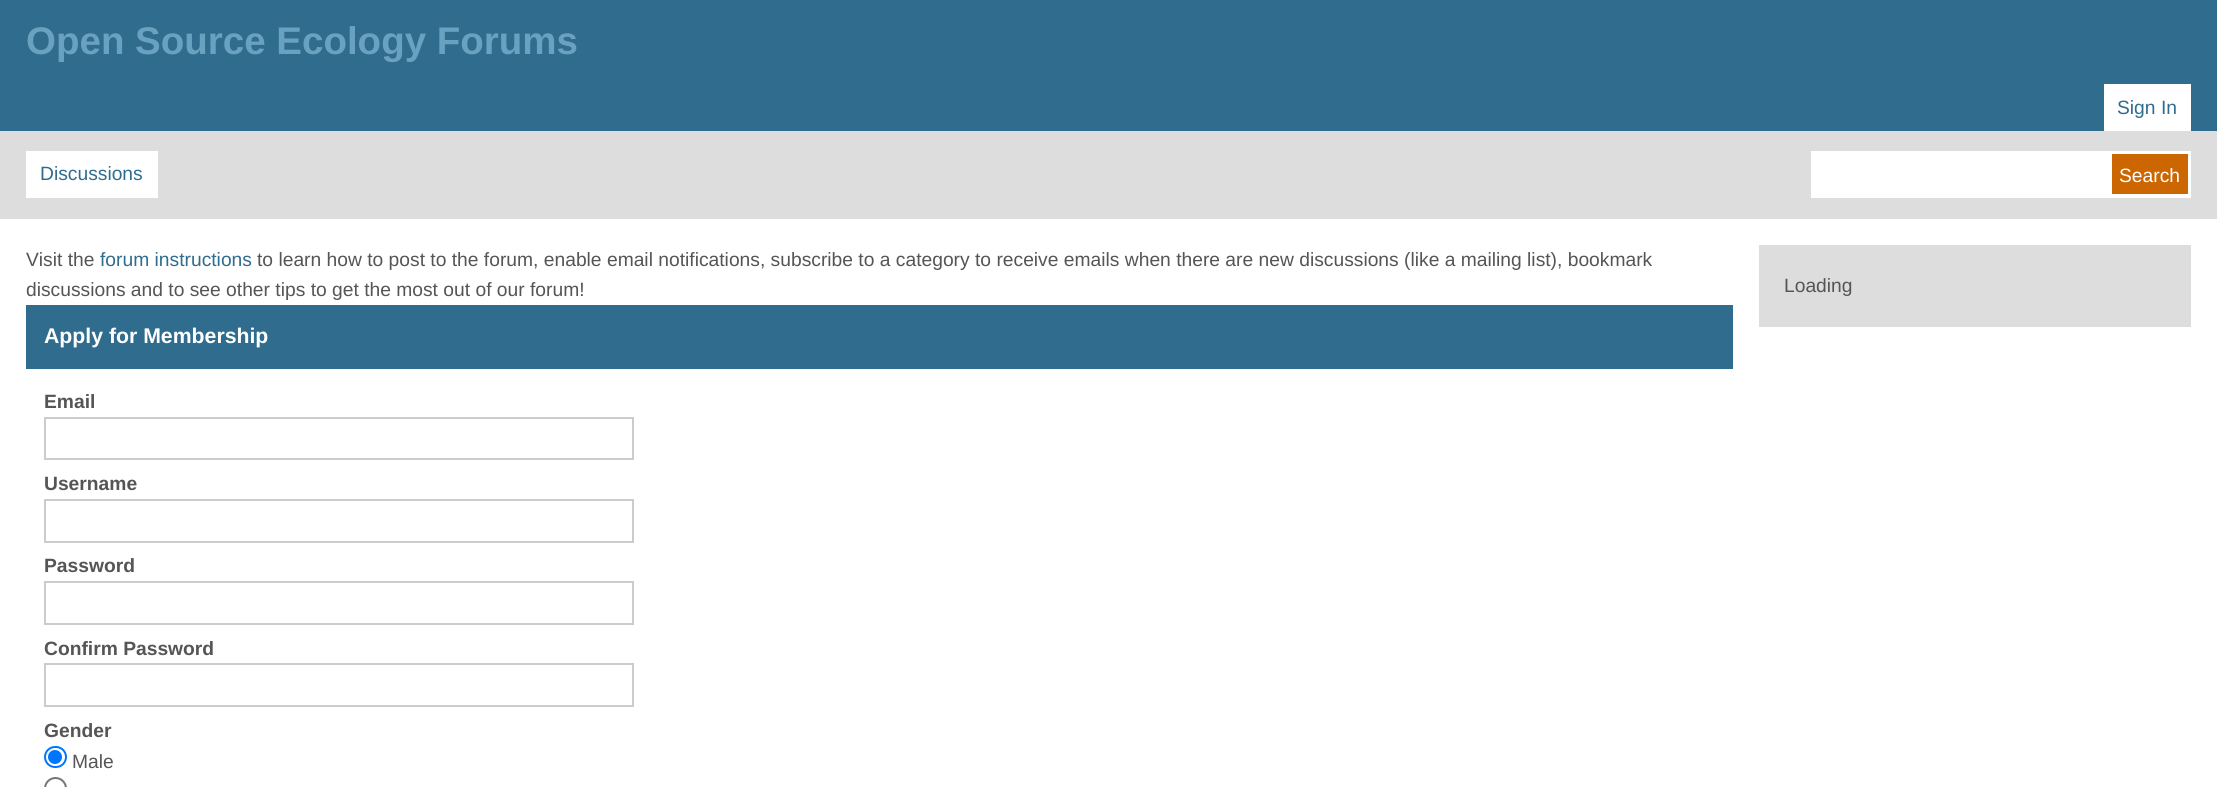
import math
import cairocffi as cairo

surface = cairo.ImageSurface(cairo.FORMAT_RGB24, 2217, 787)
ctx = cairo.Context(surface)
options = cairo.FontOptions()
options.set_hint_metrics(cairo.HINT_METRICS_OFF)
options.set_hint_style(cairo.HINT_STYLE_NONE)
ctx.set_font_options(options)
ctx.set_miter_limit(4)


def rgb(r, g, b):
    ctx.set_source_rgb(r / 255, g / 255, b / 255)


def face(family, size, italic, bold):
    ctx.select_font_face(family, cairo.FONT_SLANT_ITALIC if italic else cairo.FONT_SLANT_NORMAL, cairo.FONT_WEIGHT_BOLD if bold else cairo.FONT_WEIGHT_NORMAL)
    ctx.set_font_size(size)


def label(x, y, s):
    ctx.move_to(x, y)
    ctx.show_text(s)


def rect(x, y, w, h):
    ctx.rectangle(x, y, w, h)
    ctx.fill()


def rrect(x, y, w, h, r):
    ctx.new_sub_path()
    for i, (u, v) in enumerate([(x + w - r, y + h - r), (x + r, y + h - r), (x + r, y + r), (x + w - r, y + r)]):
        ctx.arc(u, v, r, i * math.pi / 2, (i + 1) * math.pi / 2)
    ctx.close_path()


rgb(255, 255, 255)
ctx.paint()
rgb(47, 108, 142)
rect(0, 0, 2217, 131)
face('Liberation Sans', 38.5, 0, 1)
rgb(105, 161, 193)
label(26, 54, 'Open Source Ecology Forums')
rgb(221, 221, 221)
rect(0, 131, 2217, 88)
rgb(255, 255, 255)
rect(2104, 84, 87, 47)
face('Liberation Sans', 19.25, 0, 0)
rgb(47, 108, 142)
label(2117, 114, 'Sign In')
rgb(255, 255, 255)
rect(26, 151, 132, 47)
rgb(47, 108, 142)
label(40, 180, 'Discussions')
rgb(255, 255, 255)
rect(1811, 151, 380, 47)
rgb(204, 102, 0)
rect(2112, 154, 76, 40)
rgb(255, 255, 255)
label(2119, 182, 'Search')
rgb(85, 85, 85)
label(26, 266, 'Visit the')
rgb(47, 108, 142)
label(100, 266, 'forum instructions')
rgb(85, 85, 85)
label(257, 266, 'to learn how to post to the forum, enable email notifications, subscribe to a category to receive emails when there are new discussions (like a mailing list), bookmark')
label(26, 296, 'discussions and to see other tips to get the most out of our forum!')
rgb(47, 108, 142)
rect(26, 305, 1707, 64)
face('Liberation Sans', 21.25, 0, 1)
rgb(255, 255, 255)
label(44, 343, 'Apply for Membership')
face('Liberation Sans', 19.25, 0, 1)
rgb(85, 85, 85)
label(44, 408, 'Email')
ctx.rectangle(45, 418, 588, 41)
rgb(204, 204, 204)
ctx.stroke()
rgb(85, 85, 85)
label(44, 490, 'Username')
ctx.rectangle(45, 500, 588, 42)
rgb(204, 204, 204)
ctx.stroke()
rgb(85, 85, 85)
label(44, 572, 'Password')
ctx.rectangle(45, 582, 588, 42)
rgb(204, 204, 204)
ctx.stroke()
rgb(85, 85, 85)
label(44, 655, 'Confirm Password')
ctx.rectangle(45, 664, 588, 42)
rgb(204, 204, 204)
ctx.stroke()
rgb(85, 85, 85)
label(44, 737, 'Gender')
rrect(45, 747, 21, 20, 10)
rgb(0, 117, 255)
ctx.stroke()
ctx.arc(55, 757, 7, 0, 2 * math.pi)
ctx.fill()
face('Liberation Sans', 19.25, 0, 0)
rgb(85, 85, 85)
label(72, 768, 'Male')
ctx.new_path()
ctx.arc(55.5, 788.5, 10.5, 0, 2 * math.pi)
rgb(118, 118, 118)
ctx.stroke()
rgb(221, 221, 221)
rect(1759, 245, 432, 82)
rgb(85, 85, 85)
label(1784, 292, 'Loading')
surface.write_to_png('render.png')
